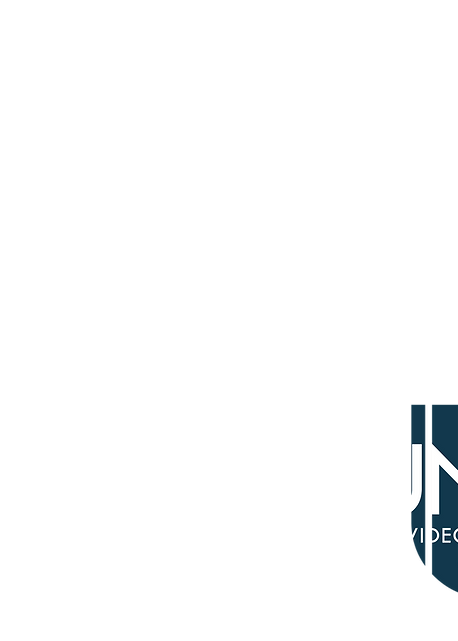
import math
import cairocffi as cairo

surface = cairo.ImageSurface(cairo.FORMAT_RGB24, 458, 641)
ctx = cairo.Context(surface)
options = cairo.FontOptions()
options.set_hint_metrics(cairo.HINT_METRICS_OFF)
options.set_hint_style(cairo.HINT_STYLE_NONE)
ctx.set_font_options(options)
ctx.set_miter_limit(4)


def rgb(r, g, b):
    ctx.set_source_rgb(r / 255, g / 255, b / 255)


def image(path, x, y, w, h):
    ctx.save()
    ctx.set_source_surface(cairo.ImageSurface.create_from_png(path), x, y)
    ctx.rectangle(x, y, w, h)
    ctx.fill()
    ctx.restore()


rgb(255, 255, 255)
ctx.paint()
image('image0.png', 411, 404, 47, 189)
surface.write_to_png('render.png')
